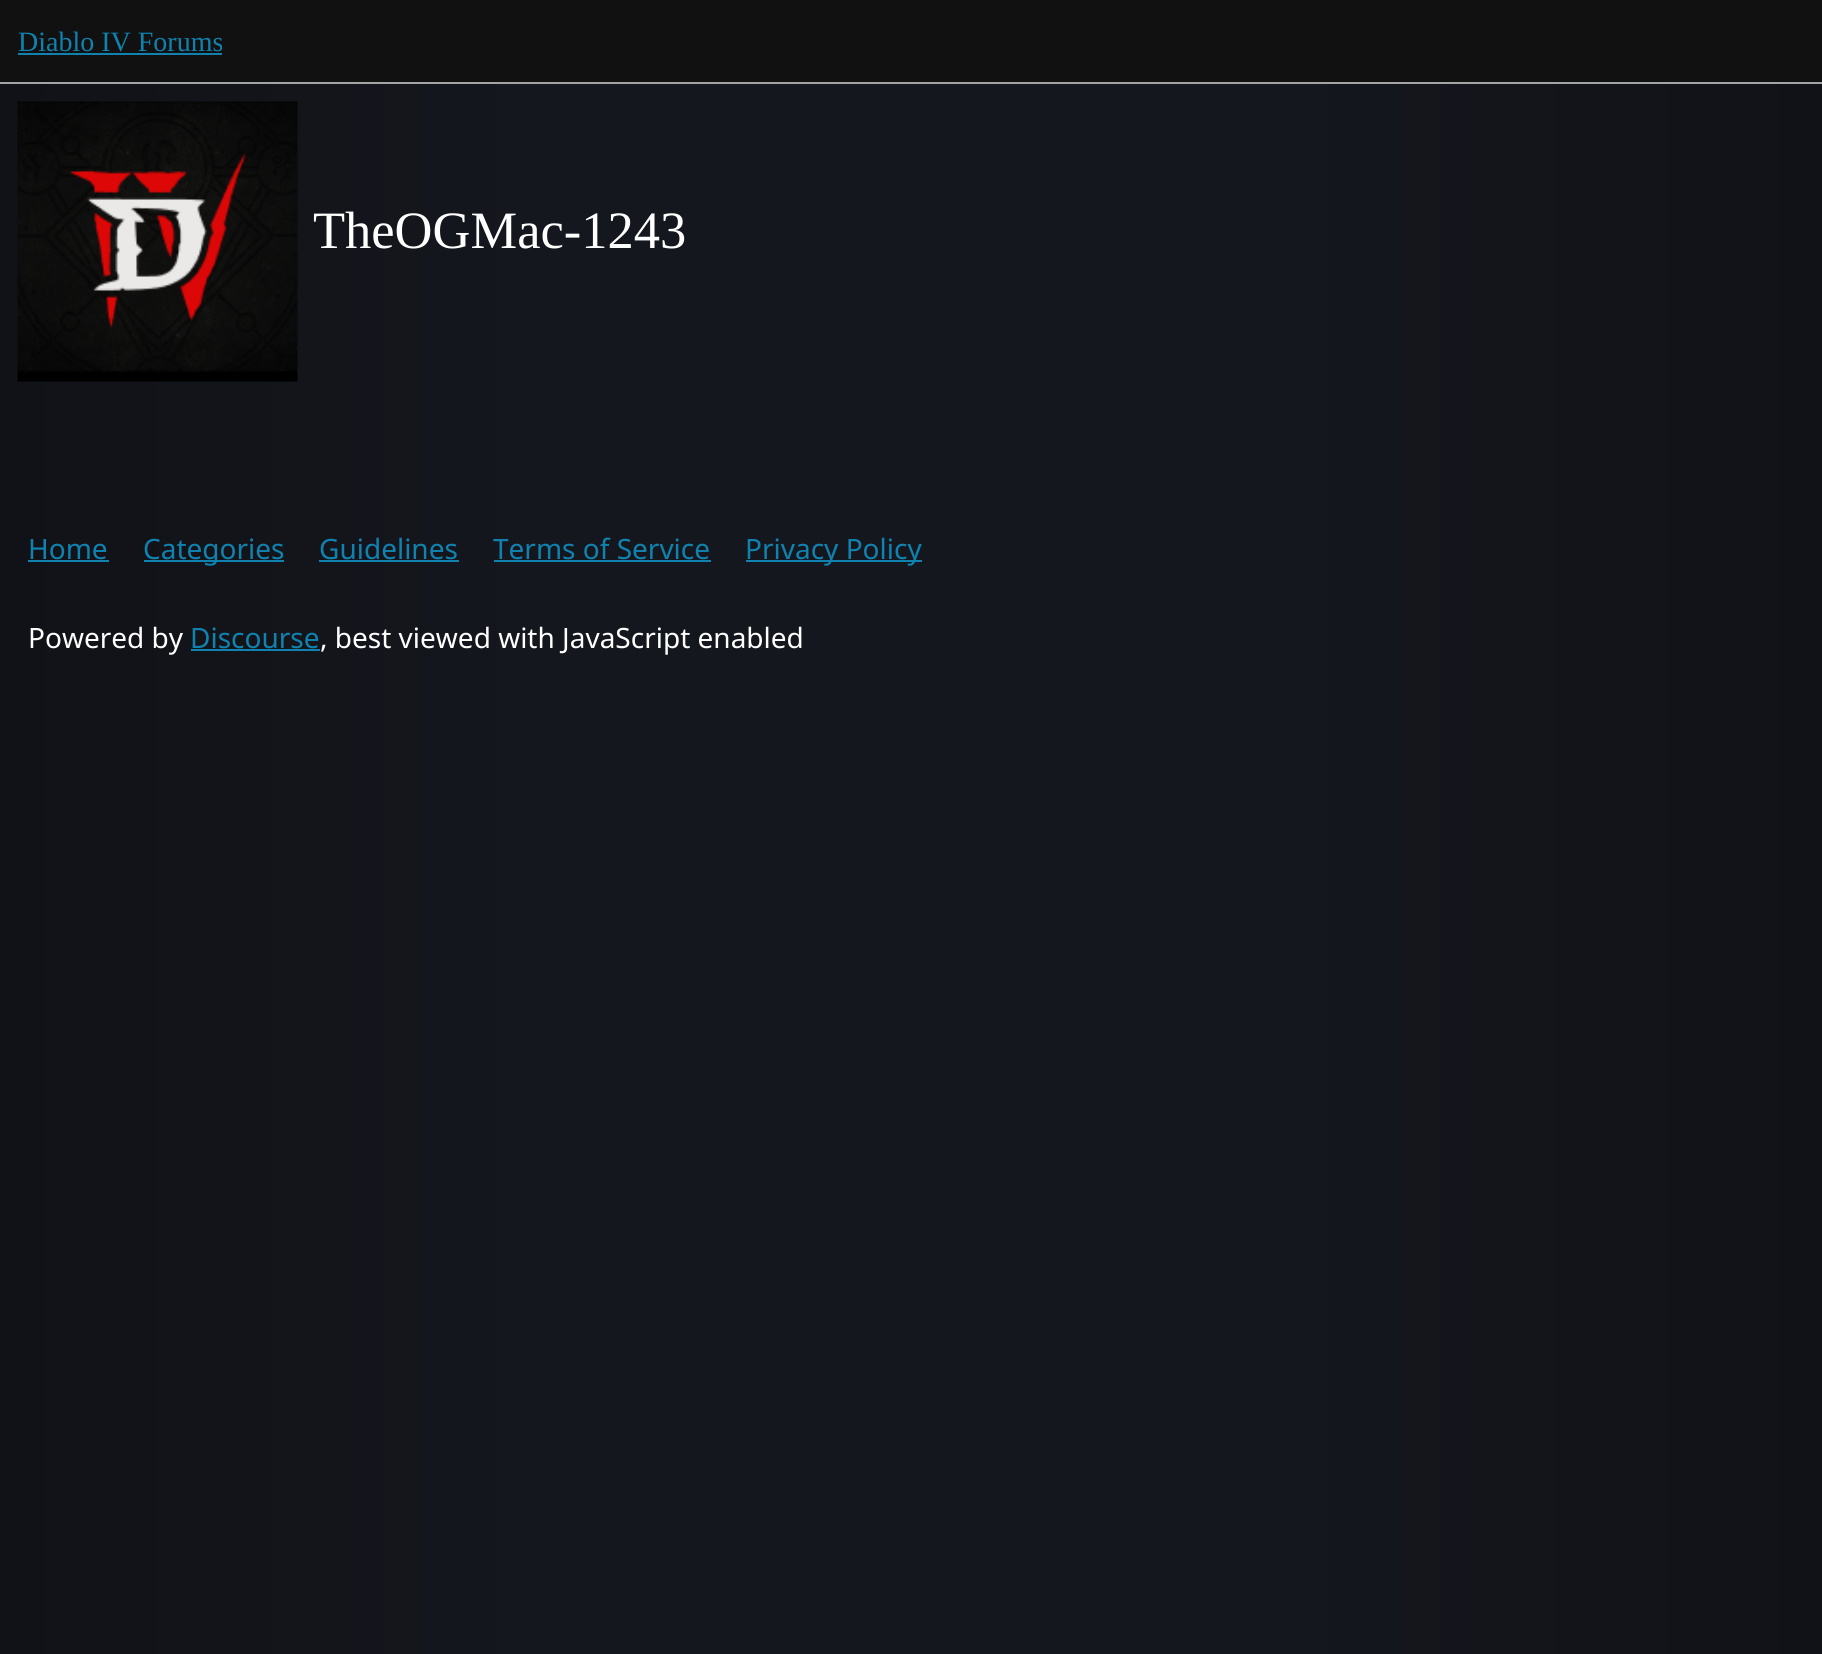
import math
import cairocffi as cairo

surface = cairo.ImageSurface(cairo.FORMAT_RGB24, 1822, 1654)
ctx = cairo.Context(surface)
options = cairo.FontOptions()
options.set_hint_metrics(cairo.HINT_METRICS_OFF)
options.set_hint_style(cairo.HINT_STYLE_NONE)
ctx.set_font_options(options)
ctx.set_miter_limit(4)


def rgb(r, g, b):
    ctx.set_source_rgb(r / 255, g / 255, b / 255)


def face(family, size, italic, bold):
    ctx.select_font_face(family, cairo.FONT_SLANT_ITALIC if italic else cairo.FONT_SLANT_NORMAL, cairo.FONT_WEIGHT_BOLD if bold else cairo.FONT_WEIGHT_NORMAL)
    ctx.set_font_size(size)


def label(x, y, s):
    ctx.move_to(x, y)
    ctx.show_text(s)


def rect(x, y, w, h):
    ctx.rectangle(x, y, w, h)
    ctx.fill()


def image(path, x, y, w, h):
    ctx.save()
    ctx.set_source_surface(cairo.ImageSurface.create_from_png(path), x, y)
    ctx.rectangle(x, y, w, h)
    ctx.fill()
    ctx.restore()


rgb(255, 255, 255)
ctx.paint()
gradient = cairo.LinearGradient(0, 828, 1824, 828)
gradient.add_color_stop_rgba(0, 0.067, 0.071, 0.09, 1)
gradient.add_color_stop_rgba(0.3, 0.082, 0.09, 0.118, 1)
gradient.add_color_stop_rgba(0.7, 0.082, 0.09, 0.118, 1)
gradient.add_color_stop_rgba(1, 0.067, 0.071, 0.09, 1)
ctx.set_source(gradient)
rect(0, 84, 1822, 1570)
rgb(17, 17, 17)
rect(0, 0, 1822, 82)
rgb(164, 164, 164)
rect(0, 82, 1822, 2)
face('Liberation Serif', 28, 0, 0)
rgb(15, 130, 175)
label(18, 51, 'Diablo IV Forums')
rect(18, 53, 204, 2)
image('image0.png', 17, 101, 281, 281)
face('Liberation Serif', 52.5, 0, 0)
rgb(255, 255, 255)
label(313, 248, 'TheOGMac-1243')
face('Noto Sans', 28, 0, 0)
rgb(15, 130, 175)
label(28, 559, 'Home')
rect(28, 560, 81, 2)
rect(144, 560, 140, 2)
label(143, 559, 'Categories')
label(319, 559, 'Guidelines')
rect(319, 560, 140, 2)
label(493, 559, 'Terms of Service')
rect(494, 560, 217, 2)
rect(746, 560, 176, 2)
label(745, 559, 'Privacy Policy')
rgb(255, 255, 255)
label(28, 648, 'Powered by')
rgb(15, 130, 175)
label(190, 648, 'Discourse')
rect(191, 649, 129, 2)
rgb(255, 255, 255)
label(320, 648, ', best viewed with JavaScript enabled')
surface.write_to_png('render.png')
